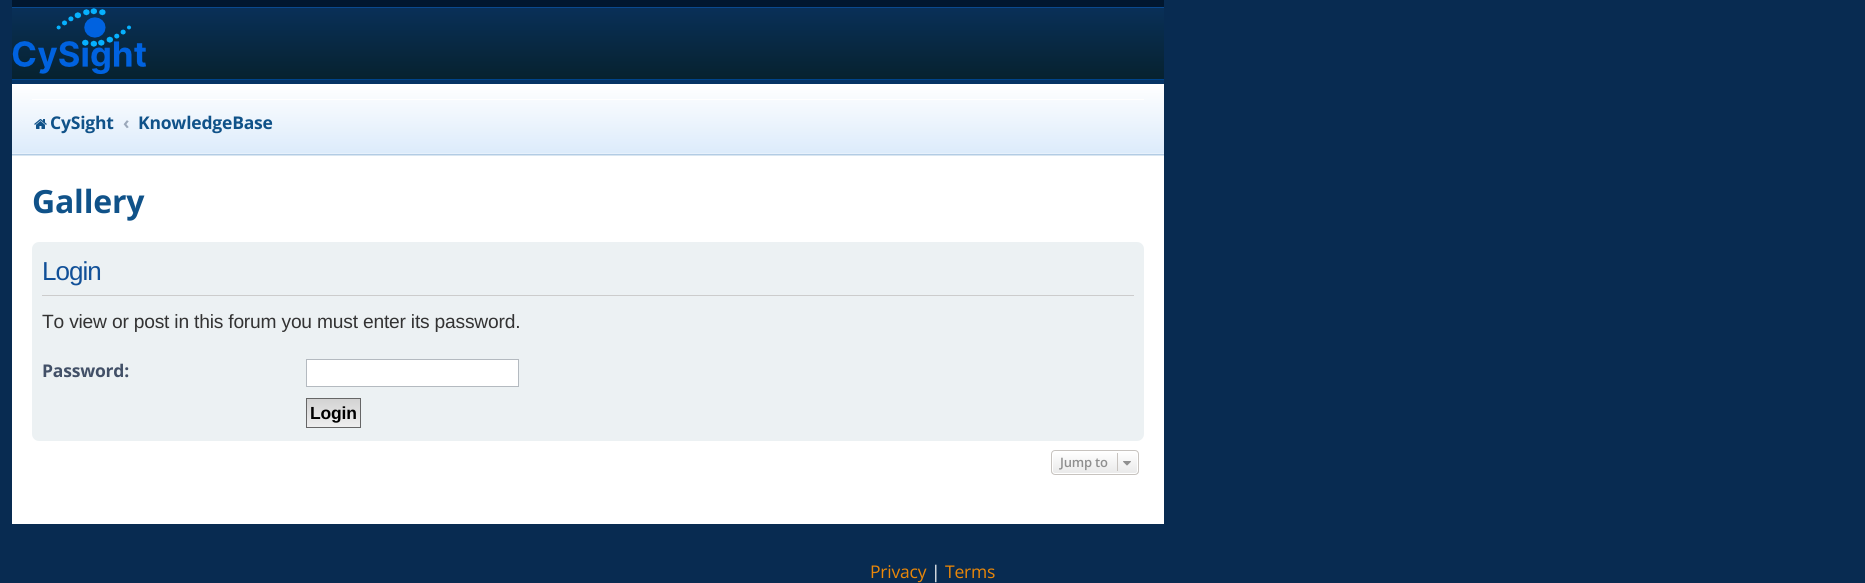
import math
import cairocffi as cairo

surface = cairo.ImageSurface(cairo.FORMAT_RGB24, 1865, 583)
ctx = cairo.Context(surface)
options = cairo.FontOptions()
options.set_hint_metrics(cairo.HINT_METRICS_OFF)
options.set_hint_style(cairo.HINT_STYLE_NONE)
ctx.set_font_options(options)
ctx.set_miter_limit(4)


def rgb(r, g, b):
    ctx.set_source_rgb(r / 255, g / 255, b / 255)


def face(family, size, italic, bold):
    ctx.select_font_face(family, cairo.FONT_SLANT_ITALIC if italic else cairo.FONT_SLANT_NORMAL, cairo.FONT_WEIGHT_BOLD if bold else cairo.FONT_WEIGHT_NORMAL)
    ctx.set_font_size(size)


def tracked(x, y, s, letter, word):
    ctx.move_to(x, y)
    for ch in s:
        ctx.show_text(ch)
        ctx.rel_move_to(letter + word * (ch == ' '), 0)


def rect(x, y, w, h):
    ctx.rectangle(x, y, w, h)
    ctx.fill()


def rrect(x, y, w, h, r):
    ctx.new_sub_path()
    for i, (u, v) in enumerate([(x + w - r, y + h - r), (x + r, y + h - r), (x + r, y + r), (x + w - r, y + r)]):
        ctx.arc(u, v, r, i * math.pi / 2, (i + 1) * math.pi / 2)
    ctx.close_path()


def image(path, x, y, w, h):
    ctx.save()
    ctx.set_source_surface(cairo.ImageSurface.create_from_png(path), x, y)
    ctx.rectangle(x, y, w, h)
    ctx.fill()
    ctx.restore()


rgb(8, 43, 81)
ctx.paint()
rgb(255, 255, 255)
rect(12, 156, 1152, 368)
rgb(1, 23, 47)
rect(12, 0, 1152, 7)
gradient = cairo.LinearGradient(588, 79, 588, 8)
gradient.add_color_stop_rgba(0, 0.027, 0.133, 0.184, 1)
gradient.add_color_stop_rgba(1, 0.035, 0.188, 0.345, 1)
ctx.set_source(gradient)
rect(12, 8, 1152, 71)
rgb(10, 73, 142)
rect(12, 7, 1152, 1)
rgb(0, 67, 137)
rect(12, 79, 1152, 1)
image('image0.png', 12, 8, 134, 66)
rgb(217, 230, 241)
rect(12, 155, 1152, 1)
gradient = cairo.LinearGradient(588, 154, 588, 84)
gradient.add_color_stop_rgba(0, 0.863, 0.922, 0.984, 1)
gradient.add_color_stop_rgba(1, 1, 1, 1, 1)
ctx.set_source(gradient)
rect(12, 84, 1152, 69)
rgb(231, 241, 252)
rect(12, 153, 1152, 1)
rgb(6, 52, 101)
rect(12, 80, 1152, 4)
rgb(179, 204, 228)
rect(12, 154, 1152, 1)
rgb(255, 255, 255)
rect(32, 99, 1112, 1)
image('image1.png', 34, 119, 13, 10)
face('Open Sans', 17.5, 0, 1)
rgb(16, 82, 137)
tracked(50, 129, 'CySight', -0.2, 0)
rgb(155, 168, 186)
tracked(123, 129, '‹', -0.2, 0)
rgb(16, 82, 137)
tracked(138, 129, 'KnowledgeBase', -0.2, 0)
face('Open Sans', 32, 0, 1)
tracked(32, 213, 'Gallery', -0.2, 0)
rgb(236, 241, 243)
rrect(32, 242, 1112, 199, 7)
ctx.fill()
rgb(204, 204, 204)
rect(42, 295, 1092, 1)
face('Liberation Sans', 26, 0, 0)
rgb(17, 80, 152)
tracked(42, 280, 'Login', -1, 0)
face('Liberation Sans', 19.2, 0, 0)
rgb(51, 51, 51)
tracked(42, 328, 'To view or post in this forum you must enter its password.', -0.2, 0)
face('Open Sans', 17.5, 0, 1)
rgb(66, 80, 103)
tracked(42, 377, 'Password:', -0.2, 0)
rgb(255, 255, 255)
ctx.rectangle(306.5, 359.5, 212, 27)
ctx.fill_preserve()
rgb(180, 186, 192)
ctx.set_line_width(1)
ctx.stroke()
gradient = cairo.LinearGradient(334, 399, 334, 427)
gradient.add_color_stop_rgba(0, 0.824, 0.824, 0.824, 1)
gradient.add_color_stop_rgba(1, 0.937, 0.937, 0.937, 1)
ctx.set_source(gradient)
rect(307, 399, 53, 28)
ctx.rectangle(306.5, 398.5, 54, 29)
rgb(102, 102, 102)
ctx.stroke()
face('Liberation Sans', 17.5, 0, 1)
rgb(0, 0, 0)
tracked(310, 419, 'Login', -0.2, 0)
ctx.save()
rrect(1051, 450, 88, 25, 4)
ctx.clip()
gradient = cairo.LinearGradient(1095, 451, 1095, 474)
gradient.add_color_stop_rgba(0, 1, 1, 1, 1)
gradient.add_color_stop_rgba(1, 0.914, 0.914, 0.914, 1)
ctx.set_source(gradient)
rect(1051, 451, 88, 23)
ctx.restore()
rrect(1052.5, 451.5, 85, 22, 2.5)
rgb(255, 255, 255)
ctx.stroke()
rrect(1051.5, 450.5, 87, 24, 3.5)
rgb(199, 195, 191)
ctx.stroke()
face('Open Sans SemiBold', 13, 0, 0)
rgb(143, 143, 143)
tracked(1060, 467, 'Jump to', -0.2, 0)
rgb(199, 195, 191)
rect(1117, 453, 1, 18)
image('image2.png', 1123, 461, 8, 5)
face('Open Sans', 17.5, 0, 0)
rgb(234, 135, 8)
tracked(870, 578, 'Privacy', -0.2, 0)
rgb(255, 255, 255)
tracked(931, 578, '|', -0.2, 0)
rgb(234, 135, 8)
tracked(945, 578, 'Terms', -0.2, 0)
surface.write_to_png('render.png')
